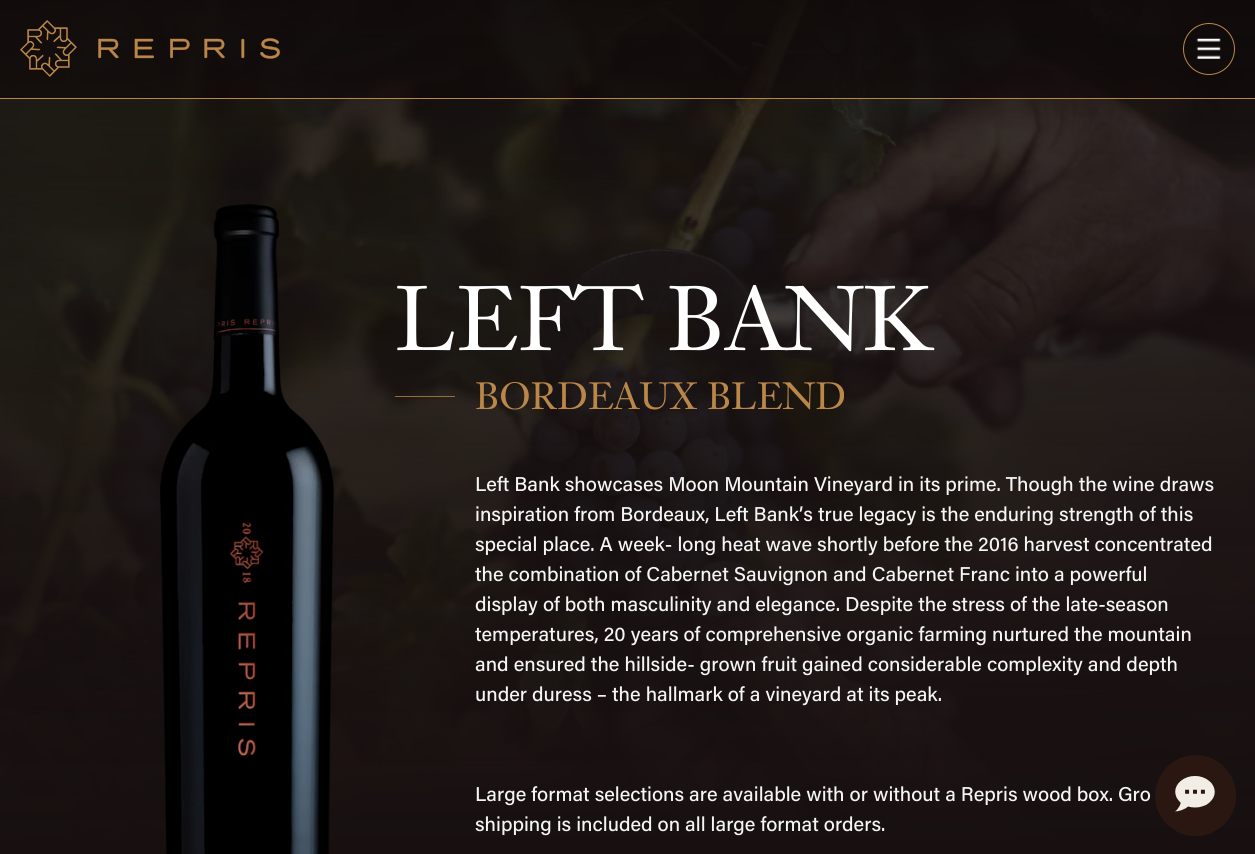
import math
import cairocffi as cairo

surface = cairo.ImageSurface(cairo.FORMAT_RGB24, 1255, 854)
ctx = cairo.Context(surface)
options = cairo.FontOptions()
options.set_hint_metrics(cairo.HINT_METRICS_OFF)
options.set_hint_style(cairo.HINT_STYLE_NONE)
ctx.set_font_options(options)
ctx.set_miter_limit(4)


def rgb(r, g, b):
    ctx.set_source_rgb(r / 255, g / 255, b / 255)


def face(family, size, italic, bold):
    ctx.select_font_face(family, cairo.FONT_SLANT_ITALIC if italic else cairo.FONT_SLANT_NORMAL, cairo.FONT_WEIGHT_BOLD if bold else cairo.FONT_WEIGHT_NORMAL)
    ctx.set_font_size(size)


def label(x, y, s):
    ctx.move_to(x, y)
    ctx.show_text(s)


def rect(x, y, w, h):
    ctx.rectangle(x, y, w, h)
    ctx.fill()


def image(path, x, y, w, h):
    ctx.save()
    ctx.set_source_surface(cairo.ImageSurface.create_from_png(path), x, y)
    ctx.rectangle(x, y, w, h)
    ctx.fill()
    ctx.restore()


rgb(24, 16, 16)
ctx.paint()
image('image2.png', 0, 0, 1255, 845)
gradient = cairo.LinearGradient(627, -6.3, 628, 849)
gradient.add_color_stop_rgba(0, 0.094, 0.063, 0.063, 0)
gradient.add_color_stop_rgba(1, 0.094, 0.063, 0.063, 1)
ctx.set_source(gradient)
rect(0, 46, 1255, 799)
rgb(186, 135, 72)
rect(0, 98, 1255, 1)
gradient = cairo.LinearGradient(628, 0, 628, 98)
gradient.add_color_stop_rgba(0, 0.059, 0.035, 0.035, 0.8)
gradient.add_color_stop_rgba(1, 0.059, 0.035, 0.035, 0.7)
ctx.set_source(gradient)
rect(0, 0, 1255, 98)
image('image0.png', 20, 20, 260, 57)
ctx.arc(1209, 49, 25.5, 0, 2 * math.pi)
rgb(186, 135, 72)
ctx.set_line_width(1)
ctx.stroke()
image('image1.png', 1196, 38, 25, 21)
image('image3.png', 160, 204, 174, 650)
face('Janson', 90, 0, 0)
rgb(255, 255, 255)
label(395, 350, 'LEFT BANK')
rgb(156, 108, 53)
rect(395, 396, 60, 1)
face('Janson', 37.5, 0, 0)
rgb(186, 135, 72)
label(475, 409, 'BORDEAUX BLEND')
face('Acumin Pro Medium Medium', 20, 0, 0)
rgb(245, 245, 244)
label(475, 491, 'Left Bank showcases Moon Mountain Vineyard in its prime. Though the wine draws')
label(475, 521, 'inspiration from Bordeaux, Left Bank’s true legacy is the enduring strength of this')
label(475, 551, 'special place. A week- long heat wave shortly before the 2016 harvest concentrated')
label(475, 581, 'the combination of Cabernet Sauvignon and Cabernet Franc into a powerful')
label(475, 611, 'display of both masculinity and elegance. Despite the stress of the late-season')
label(475, 641, 'temperatures, 20 years of comprehensive organic farming nurtured the mountain')
label(475, 671, 'and ensured the hillside- grown fruit gained considerable complexity and depth')
label(475, 701, 'under duress – the hallmark of a vineyard at its peak.')
label(475, 801, 'Large format selections are available with or without a Repris wood box. Gro')
label(475, 831, 'shipping is included on all large format orders.')
image('image4.png', 1155, 755, 81, 81)
surface.write_to_png('render.png')
